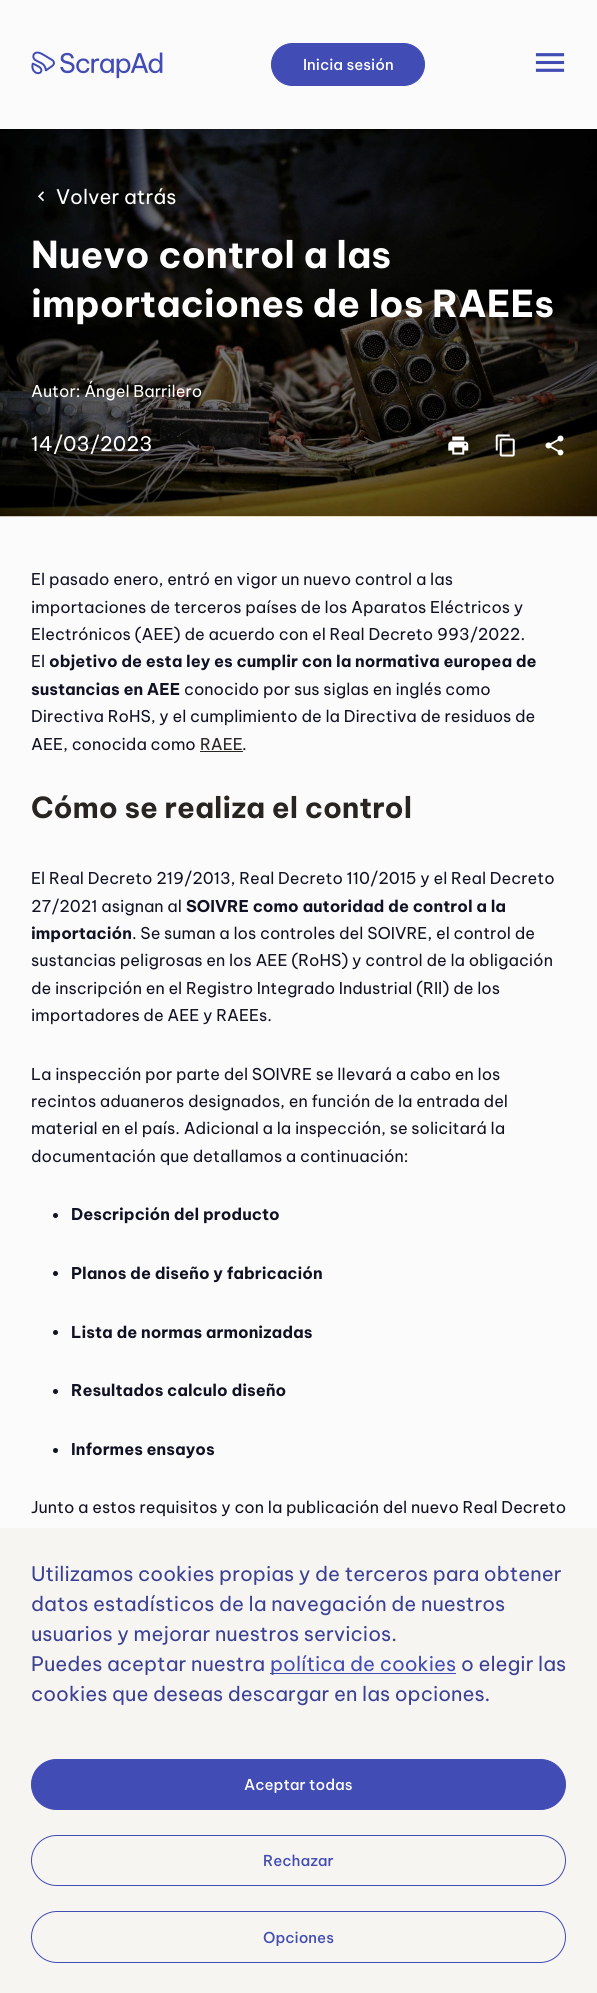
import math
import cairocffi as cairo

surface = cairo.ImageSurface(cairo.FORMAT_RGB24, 597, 1993)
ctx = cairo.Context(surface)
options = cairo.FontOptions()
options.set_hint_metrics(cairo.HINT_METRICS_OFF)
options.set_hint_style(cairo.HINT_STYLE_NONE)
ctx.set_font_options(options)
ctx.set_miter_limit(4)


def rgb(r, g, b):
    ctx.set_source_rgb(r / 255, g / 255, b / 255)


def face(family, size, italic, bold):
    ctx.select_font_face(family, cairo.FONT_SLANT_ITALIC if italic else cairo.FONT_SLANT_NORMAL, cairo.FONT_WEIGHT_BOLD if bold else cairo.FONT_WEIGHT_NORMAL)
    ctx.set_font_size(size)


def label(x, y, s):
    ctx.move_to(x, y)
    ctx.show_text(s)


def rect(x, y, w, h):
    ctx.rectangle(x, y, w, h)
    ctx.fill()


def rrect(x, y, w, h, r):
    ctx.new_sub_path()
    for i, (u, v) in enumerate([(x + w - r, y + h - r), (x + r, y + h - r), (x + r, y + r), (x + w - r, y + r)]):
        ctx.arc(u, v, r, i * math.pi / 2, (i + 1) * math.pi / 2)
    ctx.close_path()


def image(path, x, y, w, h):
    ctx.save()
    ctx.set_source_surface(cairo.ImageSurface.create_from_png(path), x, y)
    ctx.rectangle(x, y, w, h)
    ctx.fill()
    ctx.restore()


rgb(251, 251, 251)
ctx.paint()
image('image0.png', 31, 51, 132, 28)
rgb(65, 76, 180)
rrect(271.5, 43.5, 153, 42, 21)
ctx.fill_preserve()
ctx.set_line_width(1)
ctx.stroke()
face('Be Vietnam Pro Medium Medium', 15, 0, 0)
rgb(255, 255, 255)
label(303, 70, 'Inicia sesión')
image('image1.png', 535, 53, 30, 19)
image('image2.png', 0, 129, 597, 388)
image('image3.png', 38, 191, 6, 11)
face('Be Vietnam Pro', 20, 0, 0)
label(56, 204, 'Volver atrás')
face('Be Vietnam Pro', 37, 0, 1)
label(31, 268, 'Nuevo control a las')
label(31, 317, 'importaciones de los RAEEs')
face('Be Vietnam Pro', 16.2, 0, 0)
label(31, 397, 'Autor: Ángel Barrilero')
face('Be Vietnam Pro', 20, 0, 0)
label(31, 451, '14/03/2023')
image('image4.png', 448, 436, 21, 19)
image('image5.png', 495, 434, 20, 23)
image('image6.png', 545, 435, 19, 21)
face('Be Vietnam Pro', 16.2, 0, 0)
rgb(16, 18, 35)
label(31, 585, 'El pasado enero, entró en vigor un nuevo control a las')
label(31, 613, 'importaciones de terceros países de los Aparatos Eléctricos y')
label(31, 640, 'Electrónicos (AEE) de acuerdo con el Real Decreto 993/2022.')
label(31, 667, 'El')
face('Be Vietnam Pro', 16.2, 0, 1)
label(49, 667, 'objetivo de esta ley es cumplir con la normativa europea de')
label(31, 695, 'sustancias en AEE')
face('Be Vietnam Pro', 16.2, 0, 0)
label(184, 695, 'conocido por sus siglas en inglés como')
label(31, 722, 'Directiva RoHS, y el cumplimiento de la Directiva de residuos de')
label(31, 750, 'AEE, conocida como')
rgb(40, 36, 34)
label(200, 750, 'RAEE')
rect(200, 751, 43, 1)
rgb(16, 18, 35)
label(242, 750, '.')
face('Be Vietnam Pro', 29, 0, 1)
rgb(40, 36, 34)
label(31, 818, 'Cómo se realiza el control')
face('Be Vietnam Pro', 16.2, 0, 0)
rgb(16, 18, 35)
label(31, 884, 'El Real Decreto 219/2013, Real Decreto 110/2015 y el Real Decreto')
label(31, 912, '27/2021 asignan al')
face('Be Vietnam Pro', 16.2, 0, 1)
label(186, 912, 'SOIVRE como autoridad de control a la')
label(31, 939, 'importación')
face('Be Vietnam Pro', 16.2, 0, 0)
label(132, 939, '. Se suman a los controles del SOIVRE, el control de')
label(31, 966, 'sustancias peligrosas en los AEE (RoHS) y control de la obligación')
label(31, 994, 'de inscripción en el Registro Integrado Industrial (RII) de los')
label(31, 1021, 'importadores de AEE y RAEEs.')
label(31, 1080, 'La inspección por parte del SOIVRE se llevará a cabo en los')
label(31, 1107, 'recintos aduaneros designados, en función de la entrada del')
label(31, 1134, 'material en el país. Adicional a la inspección, se solicitará la')
label(31, 1162, 'documentación que detallamos a continuación:')
ctx.new_path()
ctx.arc(55.5, 1215.5, 2.5, 0, 2 * math.pi)
ctx.fill()
face('Be Vietnam Pro', 16.2, 0, 1)
label(71, 1220, 'Descripción del producto')
ctx.new_path()
ctx.arc(55.5, 1273.5, 2.5, 0, 2 * math.pi)
ctx.fill()
label(71, 1279, 'Planos de diseño y fabricación')
ctx.new_path()
ctx.arc(55.5, 1332.5, 2.5, 0, 2 * math.pi)
ctx.fill()
label(71, 1338, 'Lista de normas armonizadas')
ctx.new_path()
ctx.arc(55.5, 1391.5, 2.5, 0, 2 * math.pi)
ctx.fill()
label(71, 1396, 'Resultados calculo diseño')
ctx.new_path()
ctx.arc(55.5, 1450.5, 2.5, 0, 2 * math.pi)
ctx.fill()
label(71, 1455, 'Informes ensayos')
face('Be Vietnam Pro', 16.2, 0, 0)
label(31, 1513, 'Junto a estos requisitos y con la publicación del nuevo Real Decreto')
rgb(247, 245, 242)
rect(0, 1528, 597, 465)
face('Be Vietnam Pro', 20, 0, 0)
rgb(58, 64, 147)
label(31, 1581, 'Utilizamos cookies propias y de terceros para obtener')
label(31, 1611, 'datos estadísticos de la navegación de nuestros')
label(31, 1641, 'usuarios y mejorar nuestros servicios.')
label(31, 1671, 'Puedes aceptar nuestra')
rgb(65, 76, 180)
rect(270, 1673, 186, 1)
label(270, 1671, 'política de cookies')
rgb(58, 64, 147)
label(461, 1671, 'o elegir las')
label(31, 1701, 'cookies que deseas descargar en las opciones.')
rgb(65, 76, 180)
rrect(31.5, 1759.5, 534, 50, 25)
ctx.fill_preserve()
ctx.stroke()
face('Be Vietnam Pro Medium Medium', 15, 0, 0)
rgb(255, 255, 255)
label(244, 1790, 'Aceptar todas')
rrect(31.5, 1835.5, 534, 50, 25)
rgb(65, 76, 180)
ctx.stroke()
label(263, 1866, 'Rechazar')
rrect(31.5, 1911.5, 534, 51, 25.5)
ctx.stroke()
label(263, 1943, 'Opciones')
surface.write_to_png('render.png')
